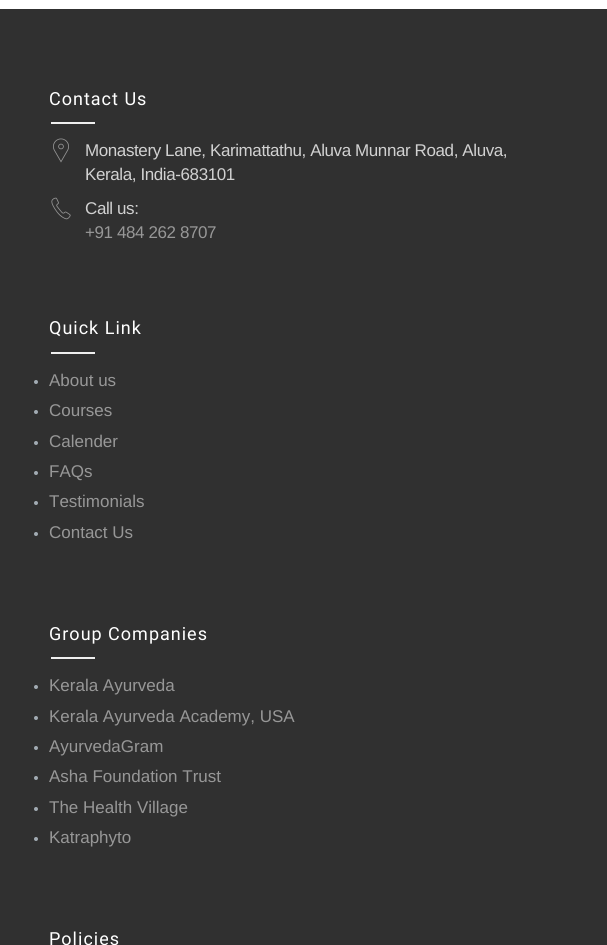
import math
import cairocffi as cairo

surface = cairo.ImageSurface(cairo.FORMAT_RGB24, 607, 945)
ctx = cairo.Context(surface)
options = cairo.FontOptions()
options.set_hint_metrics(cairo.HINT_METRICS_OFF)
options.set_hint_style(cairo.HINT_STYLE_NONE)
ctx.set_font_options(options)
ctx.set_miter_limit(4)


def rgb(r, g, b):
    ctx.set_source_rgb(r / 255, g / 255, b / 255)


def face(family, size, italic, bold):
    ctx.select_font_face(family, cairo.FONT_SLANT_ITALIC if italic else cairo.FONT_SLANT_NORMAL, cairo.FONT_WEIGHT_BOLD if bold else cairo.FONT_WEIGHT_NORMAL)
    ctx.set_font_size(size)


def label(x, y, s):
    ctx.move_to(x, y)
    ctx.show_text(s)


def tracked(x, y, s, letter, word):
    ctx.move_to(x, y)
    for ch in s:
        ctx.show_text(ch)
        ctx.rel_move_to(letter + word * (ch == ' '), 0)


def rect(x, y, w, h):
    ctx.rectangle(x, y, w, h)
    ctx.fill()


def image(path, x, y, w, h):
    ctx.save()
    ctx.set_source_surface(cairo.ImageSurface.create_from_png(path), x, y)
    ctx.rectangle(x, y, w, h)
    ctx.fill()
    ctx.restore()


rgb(255, 255, 255)
ctx.paint()
rgb(48, 48, 48)
rect(0, 9, 607, 936)
face('Roboto', 18, 0, 0)
rgb(255, 255, 255)
tracked(49, 105, 'Contact Us', 1, 0)
rgb(239, 239, 239)
rect(51, 122, 44, 2)
image('image0.png', 53, 138, 16, 25)
face('Liberation Sans', 17, 0, 0)
rgb(209, 209, 209)
tracked(85, 156, 'Monastery Lane, Karimattathu, Aluva Munnar Road, Aluva,', -0.4, 0)
tracked(85, 180, 'Kerala, India-683101', -0.4, 0)
image('image1.png', 51, 197, 20, 23)
tracked(85, 214, 'Call us:', -0.4, 0)
rgb(151, 151, 151)
tracked(85, 238, '+91 484 262 8707', -0.4, 0)
face('Roboto', 18, 0, 0)
rgb(255, 255, 255)
tracked(49, 334, 'Quick Link', 1, 0)
rgb(239, 239, 239)
rect(51, 352, 44, 2)
rgb(162, 171, 179)
ctx.new_path()
ctx.arc(36, 382, 2, 0, 2 * math.pi)
ctx.fill()
face('Liberation Sans', 17, 0, 0)
rgb(151, 151, 151)
label(49, 386, 'About us')
rgb(162, 171, 179)
ctx.new_path()
ctx.arc(36, 412, 2, 0, 2 * math.pi)
ctx.fill()
rgb(151, 151, 151)
label(49, 416, 'Courses')
rgb(162, 171, 179)
ctx.new_path()
ctx.arc(36, 443, 2, 0, 2 * math.pi)
ctx.fill()
rgb(151, 151, 151)
label(49, 447, 'Calender')
rgb(162, 171, 179)
ctx.new_path()
ctx.arc(36, 473, 2, 0, 2 * math.pi)
ctx.fill()
rgb(151, 151, 151)
label(49, 477, 'FAQs')
rgb(162, 171, 179)
ctx.new_path()
ctx.arc(36, 503, 2, 0, 2 * math.pi)
ctx.fill()
rgb(151, 151, 151)
label(49, 507, 'Testimonials')
rgb(162, 171, 179)
ctx.new_path()
ctx.arc(36, 534, 2, 0, 2 * math.pi)
ctx.fill()
rgb(151, 151, 151)
label(49, 538, 'Contact Us')
face('Roboto', 18, 0, 0)
rgb(255, 255, 255)
tracked(49, 640, 'Group Companies', 1, 0)
rgb(239, 239, 239)
rect(51, 657, 44, 2)
rgb(162, 171, 179)
ctx.new_path()
ctx.arc(36, 687, 2, 0, 2 * math.pi)
ctx.fill()
face('Liberation Sans', 17, 0, 0)
rgb(151, 151, 151)
label(49, 691, 'Kerala Ayurveda')
rgb(162, 171, 179)
ctx.new_path()
ctx.arc(36, 718, 2, 0, 2 * math.pi)
ctx.fill()
rgb(151, 151, 151)
label(49, 722, 'Kerala Ayurveda Academy, USA')
rgb(162, 171, 179)
ctx.new_path()
ctx.arc(36, 748, 2, 0, 2 * math.pi)
ctx.fill()
rgb(151, 151, 151)
label(49, 752, 'AyurvedaGram')
rgb(162, 171, 179)
ctx.new_path()
ctx.arc(36, 778, 2, 0, 2 * math.pi)
ctx.fill()
rgb(151, 151, 151)
label(49, 782, 'Asha Foundation Trust')
rgb(162, 171, 179)
ctx.new_path()
ctx.arc(36, 809, 2, 0, 2 * math.pi)
ctx.fill()
rgb(151, 151, 151)
label(49, 813, 'The Health Village')
rgb(162, 171, 179)
ctx.new_path()
ctx.arc(36, 839, 2, 0, 2 * math.pi)
ctx.fill()
rgb(151, 151, 151)
label(49, 843, 'Katraphyto')
face('Roboto', 18, 0, 0)
rgb(255, 255, 255)
tracked(49, 945, 'Policies', 1, 0)
surface.write_to_png('render.png')
